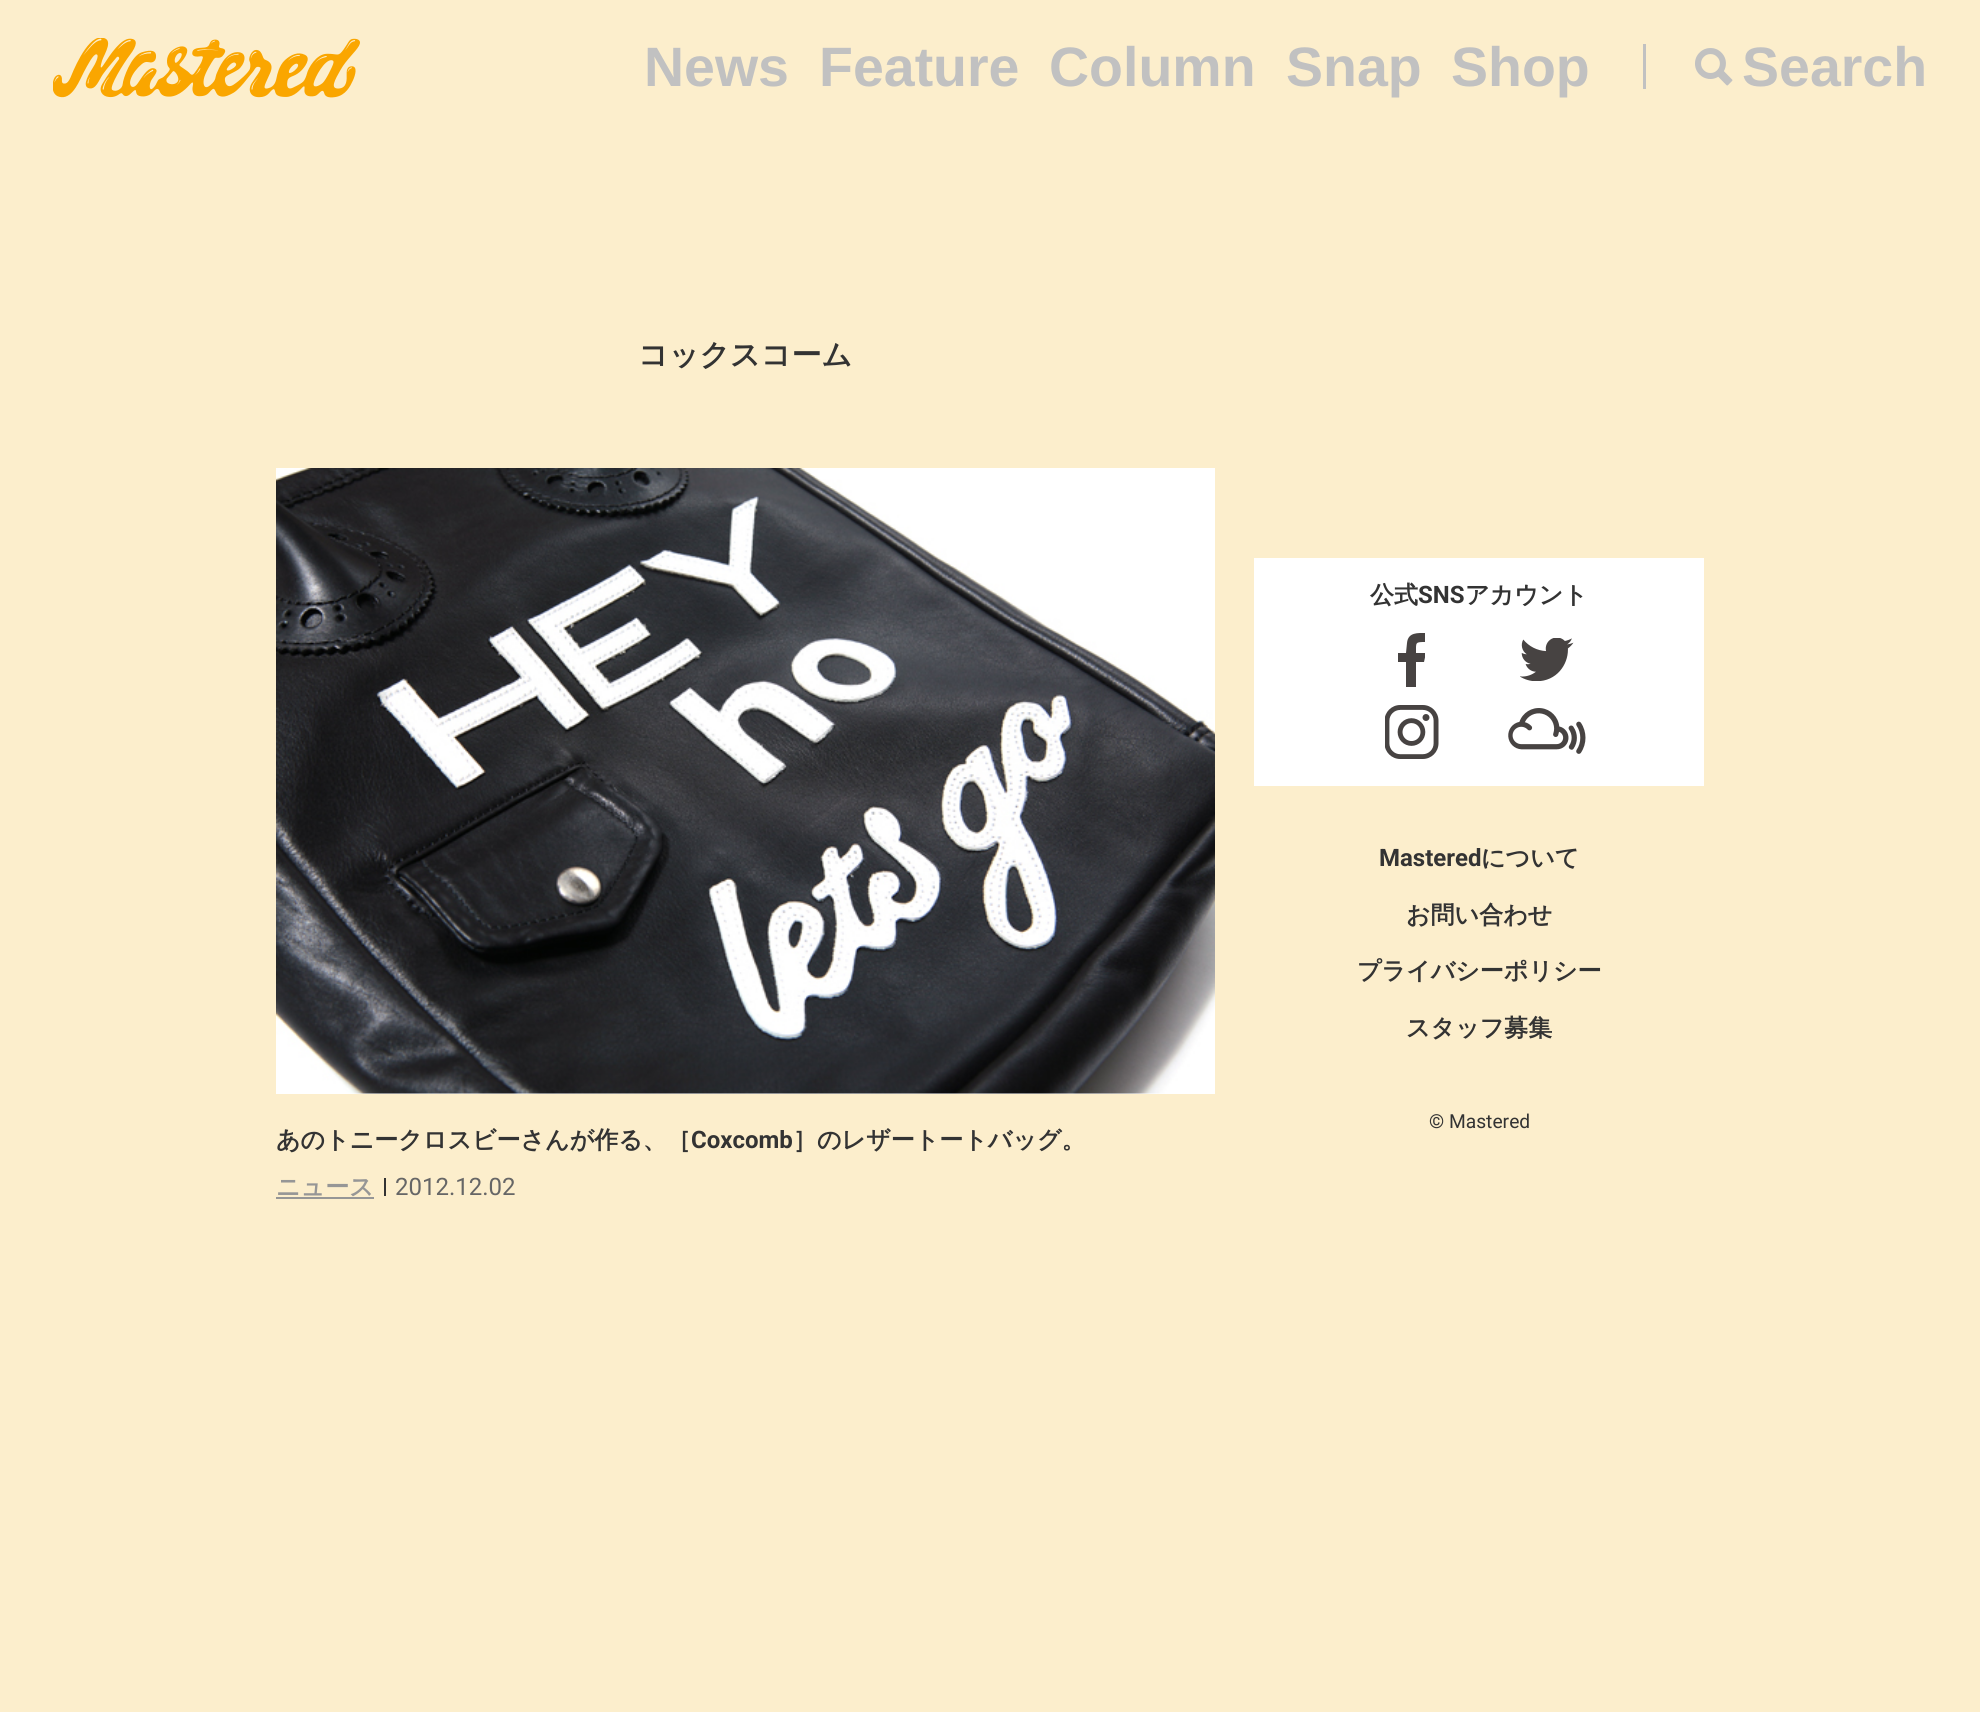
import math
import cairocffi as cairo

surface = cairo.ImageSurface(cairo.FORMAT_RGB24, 1980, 1712)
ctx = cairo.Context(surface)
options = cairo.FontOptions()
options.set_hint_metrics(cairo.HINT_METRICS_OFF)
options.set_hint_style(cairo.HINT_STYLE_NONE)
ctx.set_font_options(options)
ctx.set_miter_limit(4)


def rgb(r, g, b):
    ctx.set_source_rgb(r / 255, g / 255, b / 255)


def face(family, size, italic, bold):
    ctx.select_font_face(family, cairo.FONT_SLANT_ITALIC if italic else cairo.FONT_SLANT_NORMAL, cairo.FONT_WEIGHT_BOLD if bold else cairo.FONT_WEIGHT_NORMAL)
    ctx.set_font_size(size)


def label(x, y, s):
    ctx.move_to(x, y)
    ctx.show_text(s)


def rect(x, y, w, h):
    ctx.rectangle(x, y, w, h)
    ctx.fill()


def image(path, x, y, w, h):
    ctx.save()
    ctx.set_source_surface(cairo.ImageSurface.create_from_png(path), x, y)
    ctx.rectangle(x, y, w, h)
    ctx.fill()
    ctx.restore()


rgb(252, 238, 204)
ctx.paint()
image('image0.png', 53, 38, 307, 60)
face('Liberation Sans', 55.5, 0, 1)
rgb(193, 193, 193)
label(644, 86, 'News')
label(819, 86, 'Feature')
label(1049, 86, 'Column')
label(1286, 86, 'Snap')
label(1451, 86, 'Shop')
rect(1643, 44, 3, 45)
image('image1.png', 1695, 48, 38, 38)
label(1742, 86, 'Search')
face('WenQuanYi Zen Hei', 30, 0, 1)
rgb(51, 51, 51)
label(638, 365, 'コックスコーム')
rgb(255, 255, 255)
rect(276, 1093, 939, 1)
image('image2.png', 276, 468, 939, 626)
face('WenQuanYi Zen Hei', 24, 0, 1)
rgb(51, 51, 51)
label(276, 1148, 'あのトニークロスビーさんが作る、［')
face('Roboto', 24, 0, 1)
label(691, 1148, 'Coxcomb')
face('WenQuanYi Zen Hei', 24, 0, 1)
label(793, 1148, '］のレザートートバッグ。')
rgb(150, 150, 150)
label(276, 1195, 'ニュース')
rect(276, 1197, 98, 2)
rgb(51, 51, 51)
rect(384, 1178, 2, 18)
face('Roboto', 24, 0, 0)
rgb(102, 102, 102)
label(395, 1195, '2012.12.02')
rgb(255, 255, 255)
rect(1254, 558, 450, 228)
face('WenQuanYi Zen Hei', 24, 0, 1)
rgb(51, 51, 51)
label(1370, 603, '公式')
face('Roboto', 24, 0, 1)
label(1418, 603, 'SNS')
face('WenQuanYi Zen Hei', 24, 0, 1)
label(1465, 603, 'アカウント')
ctx.save()
ctx.rectangle(1398, 633, 27, 54)
ctx.clip()
rgb(71, 67, 66)
ctx.new_path()
ctx.move_to(1416, 687)
ctx.line_to(1416, 662)
ctx.line_to(1424, 662)
ctx.line_to(1426, 653)
ctx.line_to(1416, 653)
ctx.curve_to(1416, 642, 1415, 642, 1426, 642)
ctx.line_to(1426, 633)
ctx.curve_to(1418, 633, 1408, 632, 1407, 643)
ctx.line_to(1406, 653)
ctx.line_to(1398, 653)
ctx.line_to(1398, 662)
ctx.line_to(1406, 662)
ctx.line_to(1406, 687)
ctx.close_path()
ctx.fill()
ctx.restore()
image('image3.png', 1520, 638, 54, 43)
image('image4.png', 1385, 705, 54, 54)
image('image5.png', 1508, 708, 78, 46)
face('Roboto', 24, 0, 1)
label(1379, 866, 'Mastered')
face('WenQuanYi Zen Hei', 24, 0, 1)
label(1481, 866, 'について')
label(1406, 923, 'お問い合わせ')
label(1357, 979, 'プライバシーポリシー')
label(1406, 1036, 'スタッフ募集')
face('Roboto', 19.25, 0, 0)
label(1429, 1128, '© Mastered')
surface.write_to_png('render.png')
